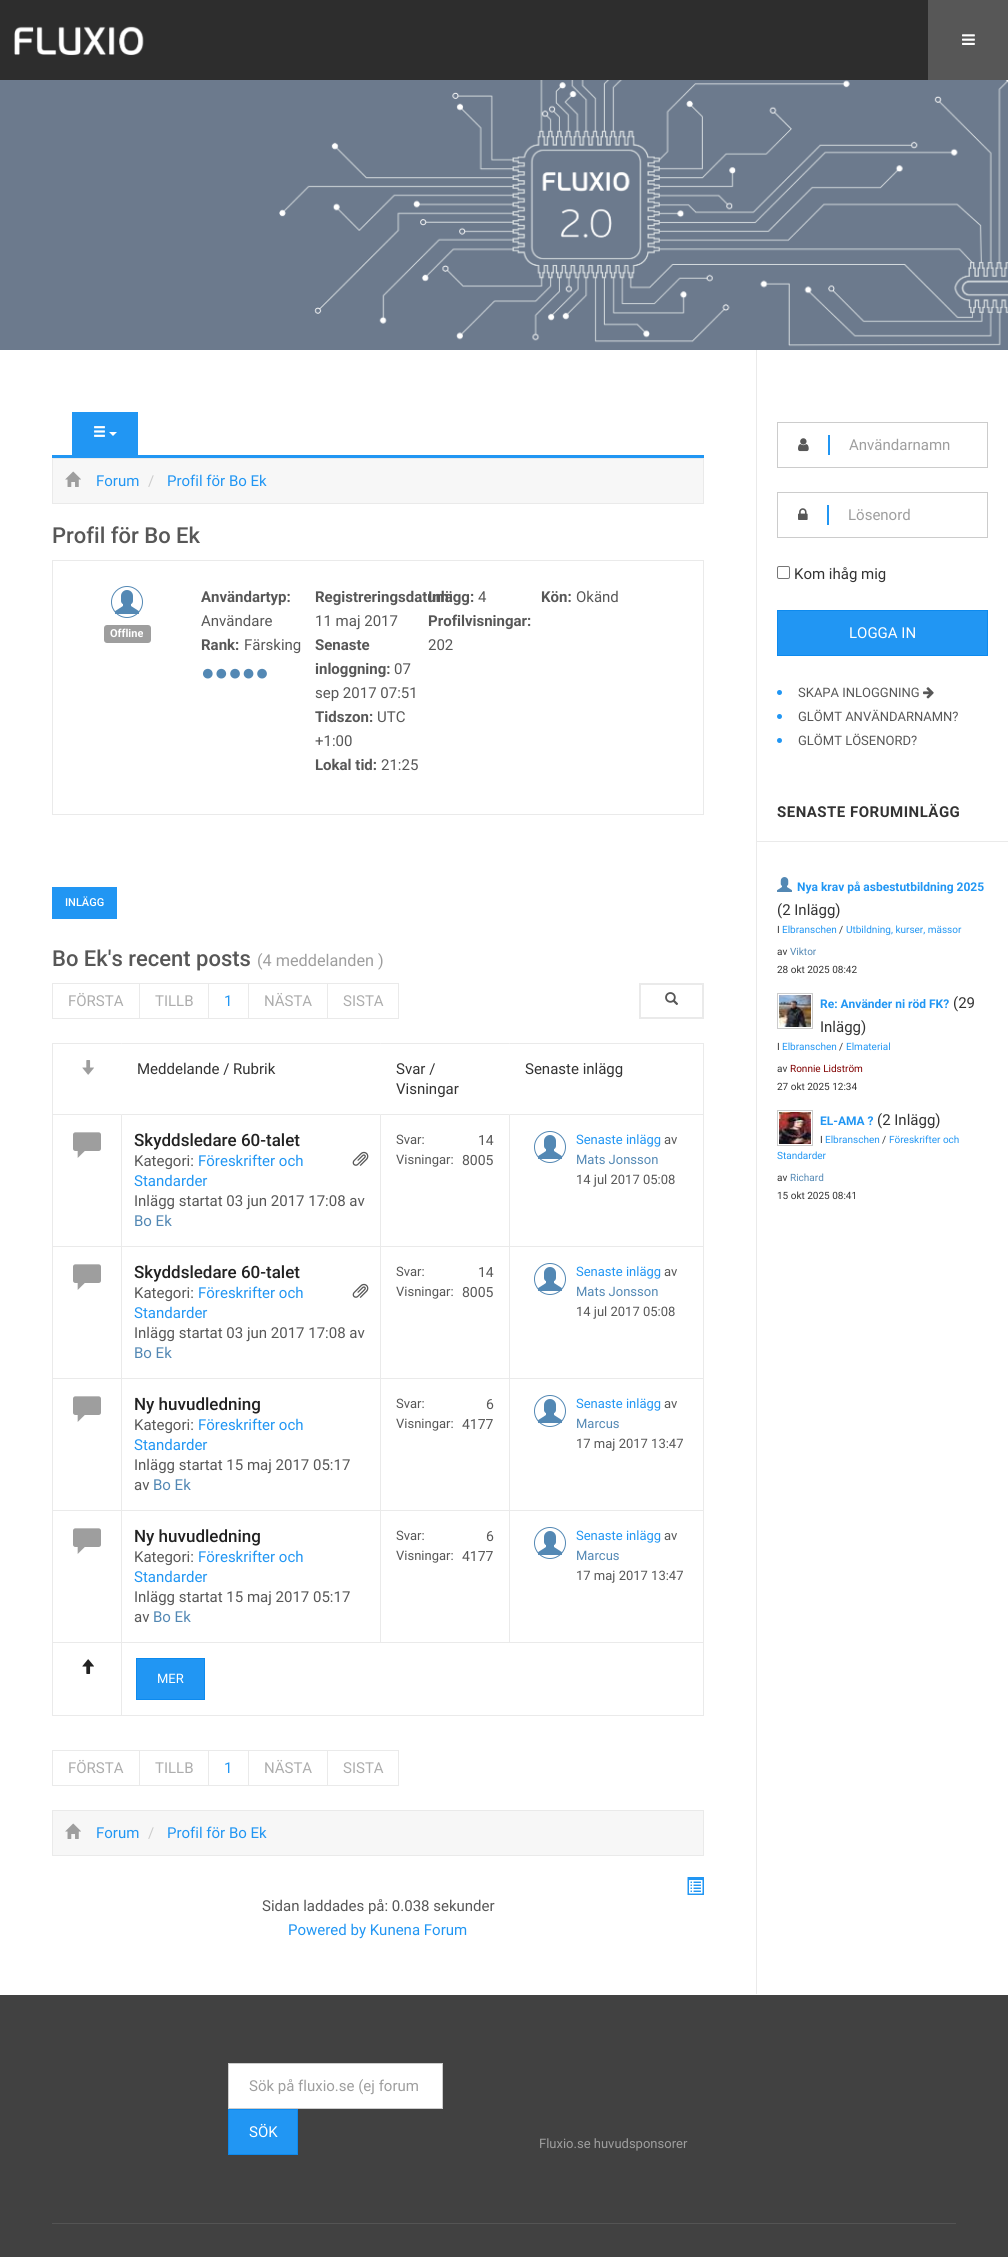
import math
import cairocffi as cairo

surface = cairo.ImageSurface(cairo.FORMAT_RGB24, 1008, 2257)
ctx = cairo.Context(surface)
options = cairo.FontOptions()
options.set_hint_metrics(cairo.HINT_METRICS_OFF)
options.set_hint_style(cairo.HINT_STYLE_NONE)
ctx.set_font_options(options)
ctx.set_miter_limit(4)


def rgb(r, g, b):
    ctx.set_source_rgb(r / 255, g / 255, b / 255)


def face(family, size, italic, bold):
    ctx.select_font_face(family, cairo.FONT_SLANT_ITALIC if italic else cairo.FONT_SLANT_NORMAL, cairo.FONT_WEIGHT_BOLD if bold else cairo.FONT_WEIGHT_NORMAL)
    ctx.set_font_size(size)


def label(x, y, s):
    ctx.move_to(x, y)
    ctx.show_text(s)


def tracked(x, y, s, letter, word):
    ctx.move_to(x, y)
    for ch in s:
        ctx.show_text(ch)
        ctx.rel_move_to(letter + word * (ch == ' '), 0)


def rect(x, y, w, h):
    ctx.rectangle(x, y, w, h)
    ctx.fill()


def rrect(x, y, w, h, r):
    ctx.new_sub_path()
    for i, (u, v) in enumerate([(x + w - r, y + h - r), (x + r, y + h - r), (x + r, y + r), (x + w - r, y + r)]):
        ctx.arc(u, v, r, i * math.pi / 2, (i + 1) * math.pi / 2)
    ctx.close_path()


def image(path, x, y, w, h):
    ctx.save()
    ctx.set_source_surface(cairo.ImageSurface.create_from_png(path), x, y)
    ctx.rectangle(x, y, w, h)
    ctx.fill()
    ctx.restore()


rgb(255, 255, 255)
ctx.paint()
rgb(45, 45, 45)
rect(0, 0, 928, 80)
rgb(87, 87, 87)
rect(928, 0, 80, 80)
image('image0.png', 962, 34, 13, 11)
image('image1.png', 14, 26, 130, 30)
image('image2.png', 0, 80, 1008, 270)
rgb(33, 150, 243)
rect(52, 455, 652, 3)
rect(72, 412, 66, 43)
image('image3.png', 94, 426, 11, 11)
rgb(255, 255, 255)
ctx.new_path()
ctx.move_to(109, 432)
ctx.line_to(117, 432)
ctx.line_to(113, 436)
ctx.close_path()
ctx.fill()
rgb(247, 247, 247)
ctx.rectangle(52.5, 458.5, 651, 45)
ctx.fill_preserve()
rgb(234, 234, 234)
ctx.set_line_width(1)
ctx.stroke()
image('image4.png', 65, 471, 16, 16)
face('Roboto', 15, 0, 0)
rgb(33, 150, 243)
label(96, 486, 'Forum')
rgb(204, 204, 204)
label(148, 486, '/')
rgb(33, 150, 243)
label(167, 486, 'Profil för Bo Ek')
face('Roboto Medium', 22, 0, 0)
rgb(87, 87, 87)
label(52, 543, 'Profil för Bo Ek')
ctx.rectangle(52.5, 560.5, 651, 254)
rgb(234, 234, 234)
ctx.stroke()
ctx.arc(127, 602, 15.5, 0, 2 * math.pi)
rgb(83, 136, 180)
ctx.stroke()
image('image5.png', 115, 590, 24, 24)
rgb(158, 158, 158)
rrect(104, 625, 47, 18, 3)
ctx.fill()
face('Roboto', 11, 0, 1)
rgb(255, 255, 255)
label(110, 637, 'Offline')
face('Roboto', 15, 0, 1)
rgb(87, 87, 87)
label(201, 602, 'Användartyp:')
face('Roboto', 15, 0, 0)
label(201, 626, 'Användare')
face('Roboto', 15, 0, 1)
label(201, 650, 'Rank:')
face('Roboto', 15, 0, 0)
label(244, 650, 'Färsking')
face('Liberation Serif', 22.5, 0, 0)
rgb(83, 136, 180)
label(201, 680, '●●●●●')
face('Roboto', 15, 0, 1)
rgb(87, 87, 87)
label(315, 602, 'Registreringsdatum:')
face('Roboto', 15, 0, 0)
label(315, 626, '11 maj 2017')
face('Roboto', 15, 0, 1)
label(315, 650, 'Senaste')
label(315, 674, 'inloggning:')
face('Roboto', 15, 0, 0)
label(394, 674, '07')
label(315, 698, 'sep 2017 07:51')
face('Roboto', 15, 0, 1)
label(315, 722, 'Tidszon:')
face('Roboto', 15, 0, 0)
label(377, 722, 'UTC')
label(315, 746, '+1:00')
face('Roboto', 15, 0, 1)
label(315, 770, 'Lokal tid:')
face('Roboto', 15, 0, 0)
label(381, 770, '21:25')
face('Roboto', 15, 0, 1)
label(428, 602, 'Inlägg:')
face('Roboto', 15, 0, 0)
label(478, 602, '4')
face('Roboto', 15, 0, 1)
label(428, 626, 'Profilvisningar:')
face('Roboto', 15, 0, 0)
label(428, 650, '202')
face('Roboto', 15, 0, 1)
label(541, 602, 'Kön:')
face('Roboto', 15, 0, 0)
label(576, 602, 'Okänd')
rgb(33, 150, 243)
rect(52, 887, 65, 32)
face('Roboto Medium', 11, 0, 0)
rgb(255, 255, 255)
label(65, 906, 'INLÄGG')
face('Roboto Medium', 22, 0, 0)
rgb(87, 87, 87)
label(52, 966, 'Bo Ek\'s recent posts')
face('Roboto', 16.25, 0, 0)
rgb(158, 158, 158)
label(257, 966, '(4 meddelanden )')
ctx.rectangle(52.5, 983.5, 346, 35)
rgb(234, 234, 234)
ctx.stroke()
face('Roboto', 15, 0, 0)
rgb(173, 173, 173)
label(68, 1006, 'FÖRSTA')
rgb(234, 234, 234)
rect(139, 984, 1, 34)
rgb(173, 173, 173)
label(155, 1006, 'TILLB')
rgb(234, 234, 234)
rect(208, 984, 1, 34)
rgb(33, 150, 243)
label(224, 1006, '1')
rgb(234, 234, 234)
rect(248, 984, 1, 34)
rgb(173, 173, 173)
label(264, 1006, 'NÄSTA')
rgb(234, 234, 234)
rect(327, 984, 1, 34)
rgb(173, 173, 173)
label(343, 1006, 'SISTA')
ctx.rectangle(640, 984, 63, 34)
rgb(234, 234, 234)
ctx.set_line_width(2)
ctx.stroke()
image('image6.png', 665, 992, 13, 13)
rect(52, 1043, 652, 1)
rgb(238, 238, 238)
rect(121, 1043, 1, 1)
rect(380, 1043, 1, 1)
rect(509, 1043, 1, 1)
rgb(234, 234, 234)
rect(703, 1043, 1, 673)
rect(52, 1715, 652, 1)
rect(52, 1043, 1, 673)
image('image7.png', 82, 1060, 12, 15)
rgb(51, 51, 51)
label(137, 1074, 'Meddelande / Rubrik')
label(396, 1074, 'Svar /')
label(396, 1094, 'Visningar')
label(525, 1074, 'Senaste inlägg')
rgb(234, 234, 234)
rect(509, 1114, 195, 1)
rect(509, 1246, 195, 1)
rect(509, 1378, 195, 1)
rect(509, 1510, 195, 1)
rect(509, 1642, 195, 1)
rect(509, 1510, 1, 133)
rect(380, 1510, 130, 1)
rect(509, 1378, 1, 133)
rect(380, 1378, 130, 1)
rect(509, 1246, 1, 133)
rect(380, 1246, 130, 1)
rect(509, 1114, 1, 133)
rect(380, 1114, 130, 1)
rect(380, 1642, 130, 1)
rect(380, 1510, 1, 133)
rect(121, 1510, 260, 1)
rect(380, 1378, 1, 133)
rect(121, 1378, 260, 1)
rect(380, 1246, 1, 133)
rect(121, 1246, 260, 1)
rect(380, 1114, 1, 133)
rect(121, 1114, 260, 1)
rect(121, 1642, 260, 1)
rect(121, 1510, 1, 133)
rect(52, 1510, 70, 1)
rect(121, 1378, 1, 133)
rect(52, 1378, 70, 1)
rect(121, 1246, 1, 133)
rect(52, 1246, 70, 1)
rect(121, 1114, 1, 133)
rect(52, 1114, 70, 1)
rgb(238, 238, 238)
rect(121, 1114, 1, 1)
image('image8.png', 73, 1132, 28, 26)
rect(380, 1114, 1, 1)
face('Roboto Medium', 17, 0, 0)
rgb(34, 34, 34)
label(134, 1146, 'Skyddsledare 60-talet')
image('image9.png', 352, 1151, 17, 15)
face('Roboto', 15, 0, 0)
rgb(87, 87, 87)
label(134, 1166, 'Kategori:')
rgb(33, 150, 243)
label(198, 1166, 'Föreskrifter och')
label(134, 1186, 'Standarder')
rgb(87, 87, 87)
label(134, 1206, 'Inlägg startat 03 jun 2017 17:08 av')
rgb(83, 136, 180)
label(134, 1226, 'Bo Ek')
rgb(238, 238, 238)
rect(509, 1114, 1, 1)
face('Roboto', 13, 0, 0)
rgb(87, 87, 87)
label(396, 1144, 'Svar:')
face('Roboto', 14, 0, 0)
label(478, 1145, '14')
face('Roboto', 13, 0, 0)
label(396, 1164, 'Visningar:')
face('Roboto', 14, 0, 0)
label(462, 1165, '8005')
ctx.new_path()
ctx.arc(550, 1147, 15.5, 0, 2 * math.pi)
rgb(83, 136, 180)
ctx.set_line_width(1)
ctx.stroke()
image('image5.png', 538, 1135, 24, 24)
face('Roboto', 13, 0, 0)
rgb(33, 150, 243)
label(576, 1144, 'Senaste inlägg')
rgb(87, 87, 87)
label(664, 1144, 'av')
rgb(83, 136, 180)
label(576, 1164, 'Mats Jonsson')
rgb(87, 87, 87)
label(576, 1184, '14 jul 2017 05:08')
image('image8.png', 73, 1264, 28, 26)
face('Roboto Medium', 17, 0, 0)
rgb(34, 34, 34)
label(134, 1278, 'Skyddsledare 60-talet')
image('image9.png', 352, 1283, 17, 15)
face('Roboto', 15, 0, 0)
rgb(87, 87, 87)
label(134, 1298, 'Kategori:')
rgb(33, 150, 243)
label(198, 1298, 'Föreskrifter och')
label(134, 1318, 'Standarder')
rgb(87, 87, 87)
label(134, 1338, 'Inlägg startat 03 jun 2017 17:08 av')
rgb(83, 136, 180)
label(134, 1358, 'Bo Ek')
face('Roboto', 13, 0, 0)
rgb(87, 87, 87)
label(396, 1276, 'Svar:')
face('Roboto', 14, 0, 0)
label(478, 1277, '14')
face('Roboto', 13, 0, 0)
label(396, 1296, 'Visningar:')
face('Roboto', 14, 0, 0)
label(462, 1297, '8005')
ctx.new_path()
ctx.arc(550, 1279, 15.5, 0, 2 * math.pi)
rgb(83, 136, 180)
ctx.stroke()
image('image5.png', 538, 1267, 24, 24)
face('Roboto', 13, 0, 0)
rgb(33, 150, 243)
label(576, 1276, 'Senaste inlägg')
rgb(87, 87, 87)
label(664, 1276, 'av')
rgb(83, 136, 180)
label(576, 1296, 'Mats Jonsson')
rgb(87, 87, 87)
label(576, 1316, '14 jul 2017 05:08')
image('image8.png', 73, 1396, 28, 26)
face('Roboto Medium', 17, 0, 0)
rgb(34, 34, 34)
label(134, 1410, 'Ny huvudledning')
face('Roboto', 15, 0, 0)
rgb(87, 87, 87)
label(134, 1430, 'Kategori:')
rgb(33, 150, 243)
label(198, 1430, 'Föreskrifter och')
label(134, 1450, 'Standarder')
rgb(87, 87, 87)
label(134, 1470, 'Inlägg startat 15 maj 2017 05:17')
label(134, 1490, 'av')
rgb(83, 136, 180)
label(153, 1490, 'Bo Ek')
face('Roboto', 13, 0, 0)
rgb(87, 87, 87)
label(396, 1408, 'Svar:')
face('Roboto', 14, 0, 0)
label(486, 1409, '6')
face('Roboto', 13, 0, 0)
label(396, 1428, 'Visningar:')
face('Roboto', 14, 0, 0)
label(462, 1429, '4177')
ctx.new_path()
ctx.arc(550, 1411, 15.5, 0, 2 * math.pi)
rgb(83, 136, 180)
ctx.stroke()
image('image5.png', 538, 1399, 24, 24)
face('Roboto', 13, 0, 0)
rgb(33, 150, 243)
label(576, 1408, 'Senaste inlägg')
rgb(87, 87, 87)
label(664, 1408, 'av')
rgb(83, 136, 180)
label(576, 1428, 'Marcus')
rgb(87, 87, 87)
label(576, 1448, '17 maj 2017 13:47')
rgb(234, 234, 234)
rect(52, 1642, 70, 1)
image('image8.png', 73, 1528, 28, 26)
face('Roboto Medium', 17, 0, 0)
rgb(34, 34, 34)
label(134, 1542, 'Ny huvudledning')
face('Roboto', 15, 0, 0)
rgb(87, 87, 87)
label(134, 1562, 'Kategori:')
rgb(33, 150, 243)
label(198, 1562, 'Föreskrifter och')
label(134, 1582, 'Standarder')
rgb(87, 87, 87)
label(134, 1602, 'Inlägg startat 15 maj 2017 05:17')
label(134, 1622, 'av')
rgb(83, 136, 180)
label(153, 1622, 'Bo Ek')
face('Roboto', 13, 0, 0)
rgb(87, 87, 87)
label(396, 1540, 'Svar:')
face('Roboto', 14, 0, 0)
label(486, 1541, '6')
face('Roboto', 13, 0, 0)
label(396, 1560, 'Visningar:')
face('Roboto', 14, 0, 0)
label(462, 1561, '4177')
ctx.new_path()
ctx.arc(550, 1543, 15.5, 0, 2 * math.pi)
rgb(83, 136, 180)
ctx.stroke()
image('image5.png', 538, 1531, 24, 24)
face('Roboto', 13, 0, 0)
rgb(33, 150, 243)
label(576, 1540, 'Senaste inlägg')
rgb(87, 87, 87)
label(664, 1540, 'av')
rgb(83, 136, 180)
label(576, 1560, 'Marcus')
rgb(87, 87, 87)
label(576, 1580, '17 maj 2017 13:47')
image('image10.png', 82, 1659, 12, 15)
rgb(234, 234, 234)
rect(121, 1642, 1, 74)
rgb(33, 150, 243)
ctx.rectangle(136.5, 1658.5, 68, 41)
ctx.fill_preserve()
rgb(13, 138, 238)
ctx.stroke()
rgb(255, 255, 255)
label(157, 1683, 'MER')
ctx.rectangle(52.5, 1750.5, 346, 35)
rgb(234, 234, 234)
ctx.stroke()
face('Roboto', 15, 0, 0)
rgb(173, 173, 173)
label(68, 1773, 'FÖRSTA')
rgb(234, 234, 234)
rect(139, 1751, 1, 34)
rgb(173, 173, 173)
label(155, 1773, 'TILLB')
rgb(234, 234, 234)
rect(208, 1751, 1, 34)
rgb(33, 150, 243)
label(224, 1773, '1')
rgb(234, 234, 234)
rect(248, 1751, 1, 34)
rgb(173, 173, 173)
label(264, 1773, 'NÄSTA')
rgb(234, 234, 234)
rect(327, 1751, 1, 34)
rgb(173, 173, 173)
label(343, 1773, 'SISTA')
rgb(247, 247, 247)
ctx.rectangle(52.5, 1810.5, 651, 45)
ctx.fill_preserve()
rgb(234, 234, 234)
ctx.stroke()
image('image4.png', 65, 1823, 16, 16)
rgb(33, 150, 243)
label(96, 1838, 'Forum')
rgb(204, 204, 204)
label(148, 1838, '/')
rgb(33, 150, 243)
label(167, 1838, 'Profil för Bo Ek')
image('image11.png', 687, 1877, 17, 18)
rgb(87, 87, 87)
label(262, 1911, 'Sidan laddades på: 0.038 sekunder')
rgb(33, 150, 243)
label(288, 1935, 'Powered by Kunena Forum')
rgb(234, 234, 234)
rect(756, 350, 1, 1644)
rgb(204, 204, 204)
rect(777, 422, 211, 1)
rect(777, 467, 52, 1)
rect(777, 422, 1, 46)
image('image12.png', 798, 438, 11, 14)
rgb(33, 150, 243)
rect(828, 435, 2, 20)
rgb(204, 204, 204)
rect(987, 422, 1, 46)
rect(829, 467, 159, 1)
rgb(158, 158, 158)
label(849, 450, 'Användarnamn')
rgb(204, 204, 204)
rect(777, 492, 211, 1)
rect(777, 537, 51, 1)
rect(777, 492, 1, 46)
image('image13.png', 798, 508, 10, 12)
rgb(33, 150, 243)
rect(827, 505, 2, 20)
rgb(204, 204, 204)
rect(987, 492, 1, 46)
rect(828, 537, 160, 1)
rgb(158, 158, 158)
label(848, 520, 'Lösenord')
rrect(777.5, 566.5, 12, 12, 1.5)
rgb(118, 118, 118)
ctx.stroke()
rgb(51, 51, 51)
label(794, 579, 'Kom ihåg mig')
rgb(33, 150, 243)
ctx.rectangle(777.5, 610.5, 210, 45)
ctx.fill_preserve()
rgb(13, 138, 238)
ctx.stroke()
rgb(255, 255, 255)
label(849, 638, 'LOGGA IN')
rgb(33, 150, 243)
ctx.new_path()
ctx.arc(779.5, 692.5, 2.5, 0, 2 * math.pi)
ctx.fill()
face('Roboto', 13, 0, 0)
rgb(87, 87, 87)
label(798, 697, 'SKAPA INLOGGNING')
image('image14.png', 923, 687, 11, 12)
rgb(33, 150, 243)
ctx.arc(779.5, 716.5, 2.5, 0, 2 * math.pi)
ctx.fill()
rgb(87, 87, 87)
label(798, 721, 'GLÖMT ANVÄNDARNAMN?')
rgb(33, 150, 243)
ctx.new_path()
ctx.arc(779.5, 740.5, 2.5, 0, 2 * math.pi)
ctx.fill()
rgb(87, 87, 87)
label(798, 745, 'GLÖMT LÖSENORD?')
rgb(234, 234, 234)
rect(757, 841, 251, 1)
face('Roboto', 15, 0, 1)
rgb(51, 51, 51)
tracked(777, 817, 'SENASTE FORUMINLÄGG', 0.5, 0)
image('image15.png', 777, 877, 15, 15)
face('Roboto', 12, 0, 1)
rgb(33, 150, 243)
label(797, 891, 'Nya krav på asbestutbildning 2025')
face('Roboto', 15, 0, 0)
rgb(51, 51, 51)
label(777, 915, '(2 Inlägg)')
face('Roboto', 10, 0, 0)
label(777, 933, 'I')
rgb(33, 150, 243)
label(782, 933, 'Elbranschen')
rgb(51, 51, 51)
label(839, 933, '/')
rgb(33, 150, 243)
label(846, 933, 'Utbildning, kurser, mässor')
rgb(51, 51, 51)
label(777, 955, 'av')
rgb(83, 136, 180)
label(790, 955, 'Viktor')
rgb(51, 51, 51)
label(777, 973, '28 okt 2025 08:42')
ctx.rectangle(777.5, 993.5, 35, 35)
rgb(204, 204, 204)
ctx.stroke()
image('image16.png', 779, 995, 32, 32)
face('Roboto', 12, 0, 1)
rgb(33, 150, 243)
label(820, 1008, 'Re: Använder ni röd FK?')
face('Roboto', 15, 0, 0)
rgb(51, 51, 51)
label(953, 1008, '(29')
label(820, 1032, 'Inlägg)')
face('Roboto', 10, 0, 0)
label(777, 1050, 'I')
rgb(33, 150, 243)
label(782, 1050, 'Elbranschen')
rgb(51, 51, 51)
label(839, 1050, '/')
rgb(33, 150, 243)
label(846, 1050, 'Elmaterial')
rgb(51, 51, 51)
label(777, 1072, 'av')
rgb(128, 0, 0)
label(790, 1072, 'Ronnie Lidström')
rgb(51, 51, 51)
label(777, 1090, '27 okt 2025 12:34')
ctx.rectangle(777.5, 1110.5, 35, 35)
rgb(204, 204, 204)
ctx.stroke()
image('image17.png', 779, 1112, 32, 32)
face('Roboto', 12, 0, 1)
rgb(33, 150, 243)
label(820, 1125, 'EL-AMA ?')
face('Roboto', 15, 0, 0)
rgb(51, 51, 51)
label(877, 1125, '(2 Inlägg)')
face('Roboto', 10, 0, 0)
label(820, 1143, 'I')
rgb(33, 150, 243)
label(825, 1143, 'Elbranschen')
rgb(51, 51, 51)
label(882, 1143, '/')
rgb(33, 150, 243)
label(889, 1143, 'Föreskrifter och')
label(777, 1159, 'Standarder')
rgb(51, 51, 51)
label(777, 1181, 'av')
rgb(83, 136, 180)
label(790, 1181, 'Richard')
rgb(51, 51, 51)
label(777, 1199, '15 okt 2025 08:41')
rgb(65, 65, 65)
rect(0, 1995, 1008, 262)
rgb(255, 255, 255)
ctx.rectangle(228.5, 2063.5, 214, 45)
ctx.fill_preserve()
rgb(204, 204, 204)
ctx.stroke()
face('Roboto', 15, 0, 0)
rgb(158, 158, 158)
label(249, 2091, 'Sök på fluxio.se (ej forum')
rgb(33, 150, 243)
ctx.rectangle(228.5, 2109.5, 69, 45)
ctx.fill_preserve()
rgb(13, 138, 238)
ctx.stroke()
rgb(255, 255, 255)
label(249, 2137, 'SÖK')
face('Roboto', 13, 0, 0)
rgb(158, 158, 158)
label(539, 2148, 'Fluxio.se huvudsponsorer')
rgb(84, 84, 84)
rect(52, 2223, 904, 1)
surface.write_to_png('render.png')
